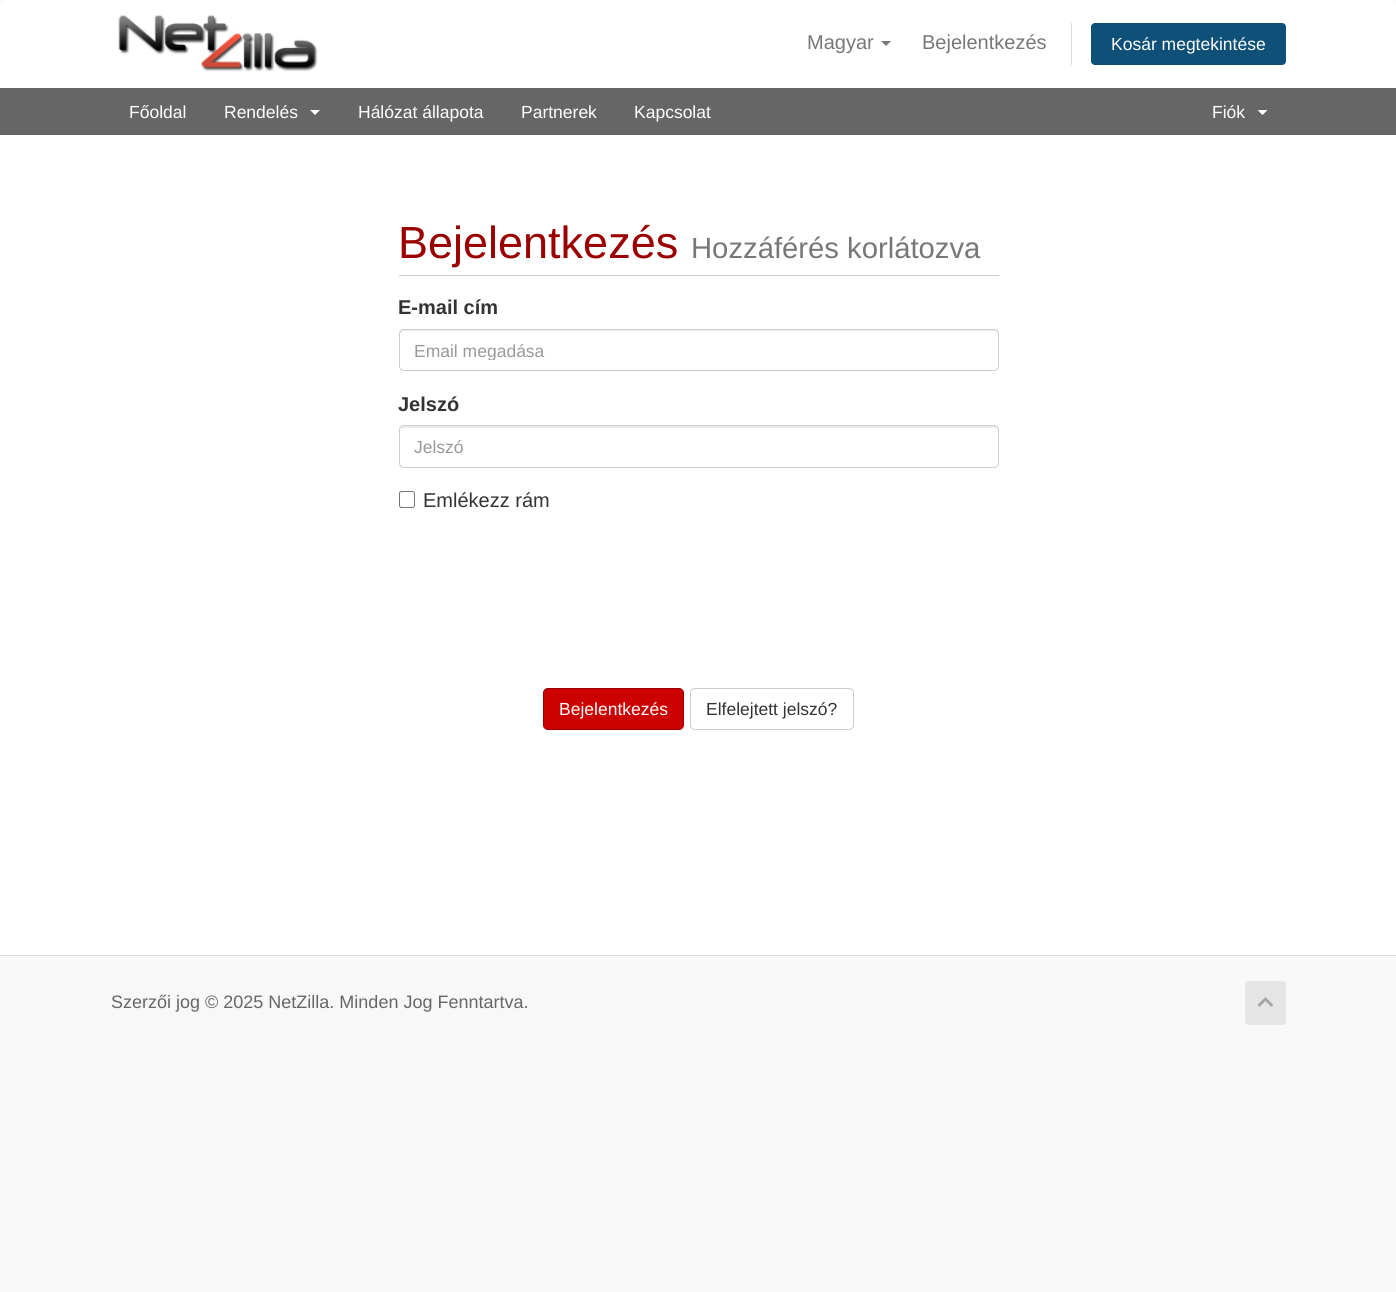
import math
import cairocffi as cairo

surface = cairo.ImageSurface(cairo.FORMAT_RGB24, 1396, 1292)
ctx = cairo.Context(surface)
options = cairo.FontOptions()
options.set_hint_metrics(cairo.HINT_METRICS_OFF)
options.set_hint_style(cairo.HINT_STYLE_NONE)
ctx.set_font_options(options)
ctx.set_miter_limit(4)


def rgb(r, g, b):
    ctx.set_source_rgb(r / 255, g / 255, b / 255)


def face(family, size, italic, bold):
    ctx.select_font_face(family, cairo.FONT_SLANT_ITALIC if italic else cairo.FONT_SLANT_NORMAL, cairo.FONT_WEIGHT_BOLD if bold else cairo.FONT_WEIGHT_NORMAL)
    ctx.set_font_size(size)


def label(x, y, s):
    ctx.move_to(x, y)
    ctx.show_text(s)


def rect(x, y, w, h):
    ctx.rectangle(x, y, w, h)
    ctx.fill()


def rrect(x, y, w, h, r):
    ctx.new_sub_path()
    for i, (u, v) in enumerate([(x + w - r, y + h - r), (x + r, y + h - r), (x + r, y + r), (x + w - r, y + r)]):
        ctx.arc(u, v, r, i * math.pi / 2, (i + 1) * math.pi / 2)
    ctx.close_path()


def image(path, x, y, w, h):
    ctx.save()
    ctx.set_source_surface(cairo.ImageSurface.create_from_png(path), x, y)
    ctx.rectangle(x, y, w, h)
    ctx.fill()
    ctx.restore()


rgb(248, 248, 248)
ctx.paint()
rgb(255, 255, 255)
ctx.new_path()
ctx.move_to(6, 0)
ctx.line_to(1390, 0)
ctx.curve_to(1393.5, 0, 1396, 2.5, 1396, 6)
ctx.line_to(1396, 88)
ctx.line_to(0, 88)
ctx.line_to(0, 6)
ctx.curve_to(0, 2.5, 2.5, 0, 6, 0)
ctx.close_path()
ctx.fill()
image('image0.png', 118, 15, 200, 57)
face('Liberation Sans', 20, 0, 0)
rgb(119, 119, 119)
label(807, 49, 'Magyar')
ctx.new_path()
ctx.move_to(881, 41)
ctx.line_to(891, 41)
ctx.line_to(886, 46)
ctx.close_path()
ctx.fill()
label(922, 49, 'Bejelentkezés')
rgb(221, 221, 221)
rect(1071, 23, 1, 42)
rgb(14, 80, 119)
rrect(1091, 23, 195, 42, 4)
ctx.fill()
face('Liberation Sans', 17.5, 0, 0)
rgb(255, 255, 255)
label(1111, 50, 'Kosár megtekintése')
rgb(102, 102, 102)
rect(0, 88, 1396, 47)
rgb(255, 255, 255)
label(129, 118, 'Főoldal')
label(224, 118, 'Rendelés')
ctx.new_path()
ctx.move_to(310, 110)
ctx.line_to(320, 110)
ctx.line_to(315, 115)
ctx.close_path()
ctx.fill()
label(358, 118, 'Hálózat állapota')
label(521, 118, 'Partnerek')
label(634, 118, 'Kapcsolat')
label(1212, 118, 'Fiók')
ctx.new_path()
ctx.move_to(1257.5, 110)
ctx.line_to(1267.5, 110)
ctx.line_to(1262.5, 115)
ctx.close_path()
ctx.fill()
rect(0, 135, 1396, 820)
rgb(204, 204, 204)
rect(399, 275, 600, 1)
face('Liberation Sans', 45, 0, 0)
rgb(155, 0, 0)
label(398, 258, 'Bejelentkezés')
face('Liberation Sans', 29.25, 0, 0)
rgb(119, 119, 119)
label(691, 258, 'Hozzáférés korlátozva')
face('Liberation Sans', 20, 0, 1)
rgb(51, 51, 51)
label(398, 314, 'E-mail cím')
rgb(236, 236, 236)
ctx.new_path()
ctx.move_to(404, 331)
ctx.line_to(994, 331)
ctx.curve_to(996, 331, 998, 333, 998, 335)
ctx.line_to(998, 334)
ctx.curve_to(998, 332, 996, 330, 994, 330)
ctx.line_to(404, 330)
ctx.curve_to(402, 330, 400, 332, 400, 334)
ctx.line_to(400, 335)
ctx.curve_to(400, 333, 402, 331, 404, 331)
ctx.close_path()
ctx.fill()
rrect(399.5, 329.5, 599, 41, 4.5)
rgb(204, 204, 204)
ctx.set_line_width(1)
ctx.stroke()
ctx.save()
ctx.rectangle(415, 340, 568, 20)
ctx.clip()
face('Liberation Sans', 17.5, 0, 0)
rgb(153, 153, 153)
label(414, 357, 'Email megadása')
ctx.restore()
rgb(51, 51, 51)
label(398, 411, 'Jelszó')
rgb(236, 236, 236)
ctx.new_path()
ctx.move_to(404, 428)
ctx.line_to(994, 428)
ctx.curve_to(996, 428, 998, 429, 998, 431)
ctx.line_to(998, 430)
ctx.curve_to(998, 428, 996, 426, 994, 426)
ctx.line_to(404, 426)
ctx.curve_to(402, 426, 400, 428, 400, 430)
ctx.line_to(400, 431)
ctx.curve_to(400, 429, 402, 428, 404, 428)
ctx.close_path()
ctx.fill()
rrect(399.5, 425.5, 599, 42, 4.5)
rgb(204, 204, 204)
ctx.stroke()
face('Liberation Sans', 17.5, 0, 0)
rgb(153, 153, 153)
label(414, 453, 'Jelszó')
rrect(399.5, 491.5, 15, 16, 2)
rgb(118, 118, 118)
ctx.stroke()
face('Liberation Sans', 20, 0, 0)
rgb(51, 51, 51)
label(423, 507, 'Emlékezz rám')
rgb(205, 0, 0)
rrect(543.5, 688.5, 140, 41, 4.5)
ctx.fill_preserve()
rgb(155, 0, 0)
ctx.stroke()
face('Liberation Sans', 17.5, 0, 0)
rgb(255, 255, 255)
label(559, 715, 'Bejelentkezés')
rrect(690.5, 688.5, 163, 41, 4.5)
rgb(204, 204, 204)
ctx.stroke()
rgb(51, 51, 51)
label(706, 715, 'Elfelejtett jelszó?')
rgb(221, 221, 221)
rect(0, 955, 1396, 1)
face('Liberation Sans', 18, 0, 0)
rgb(102, 102, 102)
label(111, 1008, 'Szerzői jog © 2025 NetZilla. Minden Jog Fenntartva.')
rgb(229, 229, 229)
rrect(1245, 981, 41, 44, 4)
ctx.fill()
image('image1.png', 1257, 997, 16, 10)
surface.write_to_png('render.png')
